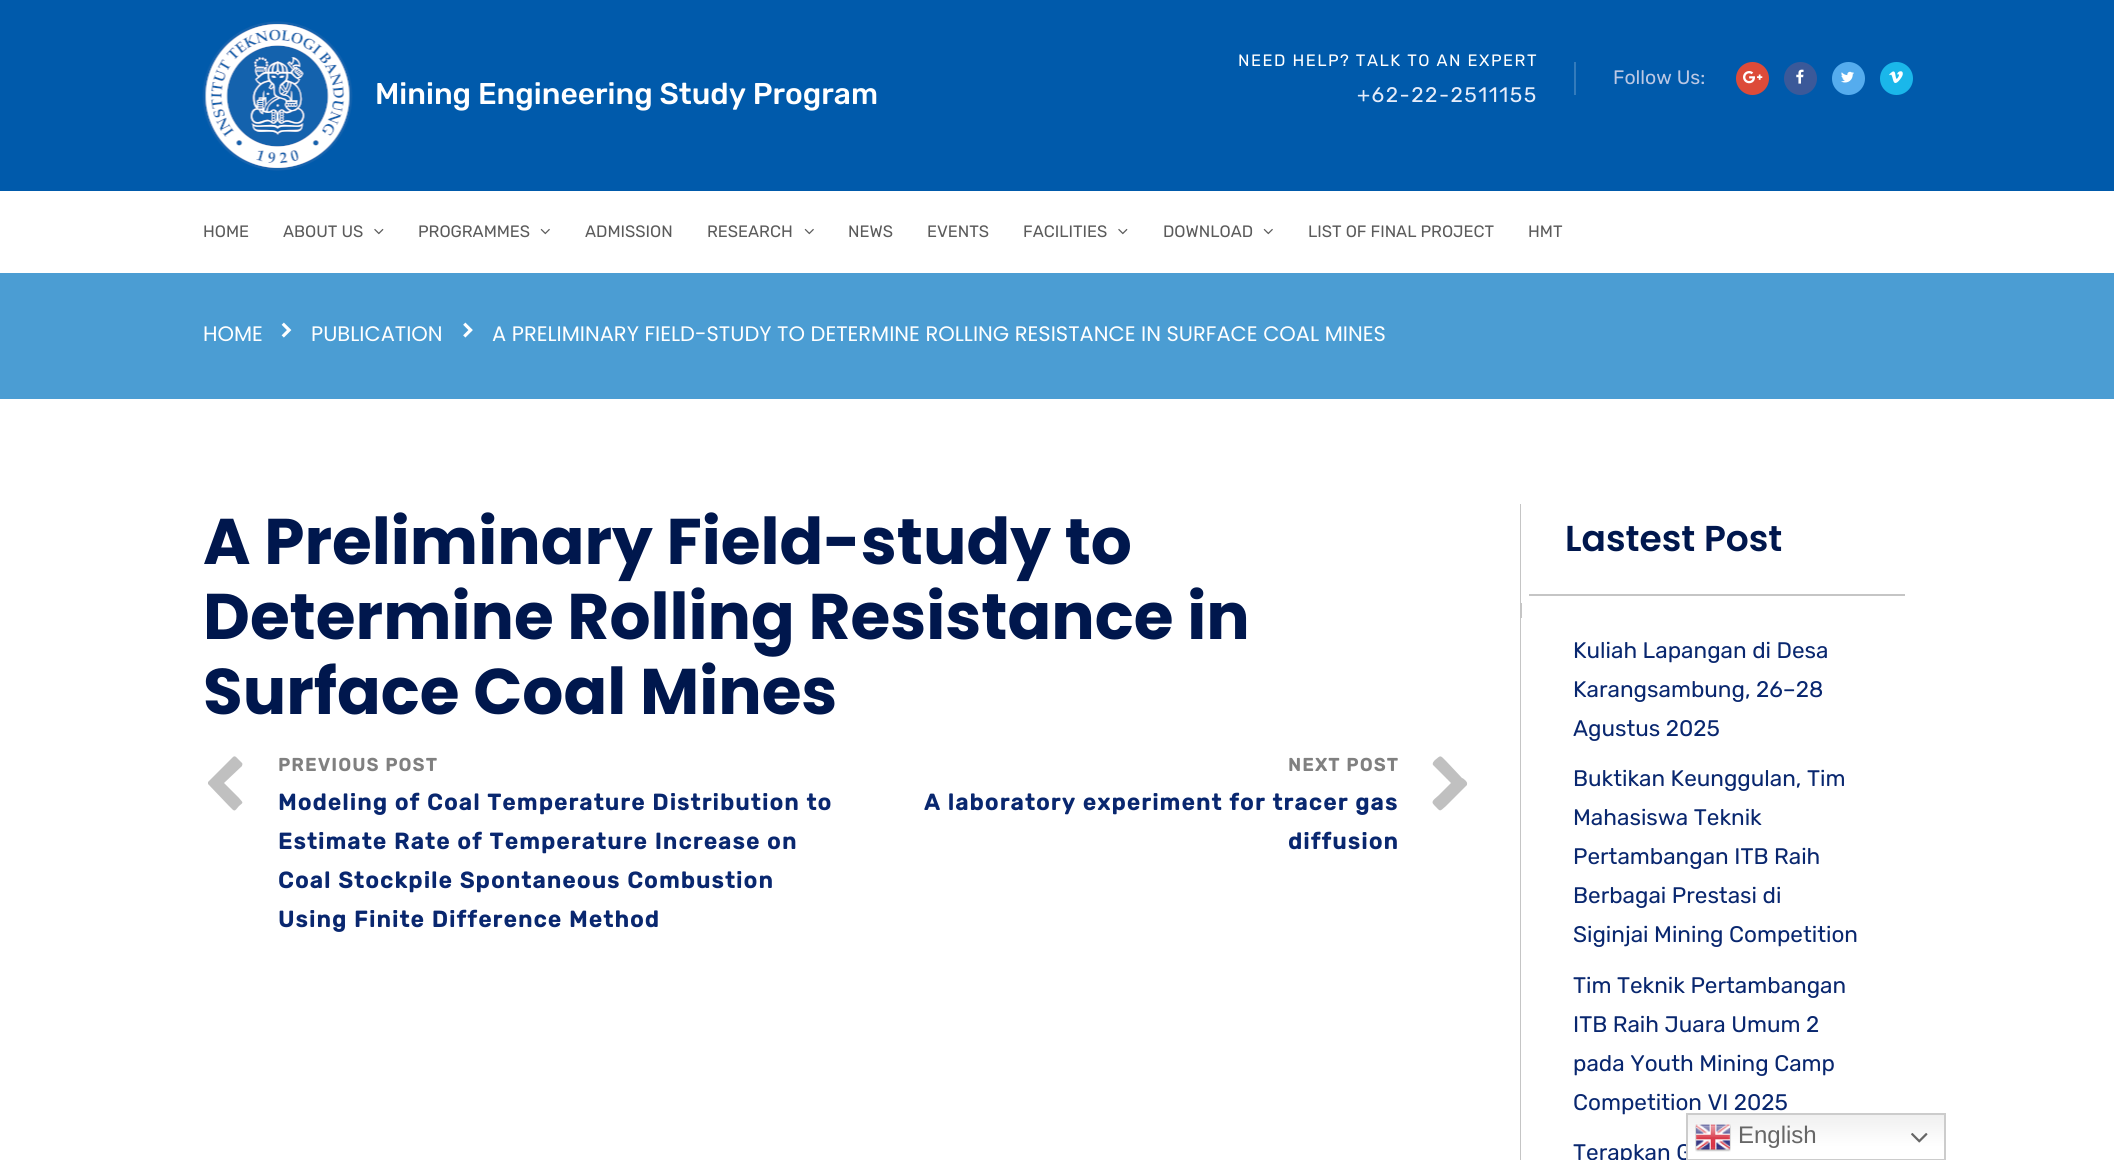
import math
import cairocffi as cairo

surface = cairo.ImageSurface(cairo.FORMAT_RGB24, 2114, 1160)
ctx = cairo.Context(surface)
options = cairo.FontOptions()
options.set_hint_metrics(cairo.HINT_METRICS_OFF)
options.set_hint_style(cairo.HINT_STYLE_NONE)
ctx.set_font_options(options)
ctx.set_miter_limit(4)


def rgb(r, g, b):
    ctx.set_source_rgb(r / 255, g / 255, b / 255)


def face(family, size, italic, bold):
    ctx.select_font_face(family, cairo.FONT_SLANT_ITALIC if italic else cairo.FONT_SLANT_NORMAL, cairo.FONT_WEIGHT_BOLD if bold else cairo.FONT_WEIGHT_NORMAL)
    ctx.set_font_size(size)


def label(x, y, s):
    ctx.move_to(x, y)
    ctx.show_text(s)


def tracked(x, y, s, letter, word):
    ctx.move_to(x, y)
    for ch in s:
        ctx.show_text(ch)
        ctx.rel_move_to(letter + word * (ch == ' '), 0)


def rect(x, y, w, h):
    ctx.rectangle(x, y, w, h)
    ctx.fill()


def image(path, x, y, w, h):
    ctx.save()
    ctx.set_source_surface(cairo.ImageSurface.create_from_png(path), x, y)
    ctx.rectangle(x, y, w, h)
    ctx.fill()
    ctx.restore()


rgb(255, 255, 255)
ctx.paint()
rgb(0, 90, 171)
rect(0, 0, 2114, 191)
image('image0.png', 202, 21, 151, 150)
face('Rubik Medium', 30, 0, 0)
rgb(255, 255, 255)
label(375, 104, 'Mining Engineering Study Program')
face('Rubik Light', 16.5, 0, 0)
tracked(1238, 66, 'NEED HELP? TALK TO AN EXPERT', 1.5, 0)
face('Rubik Light', 21, 0, 0)
rgb(229, 236, 250)
tracked(1357, 102, '+62-22-2511155', 1.5, 0)
rgb(51, 123, 188)
rect(1574, 62, 2, 33)
face('Rubik Light', 19.5, 0, 0)
rgb(188, 200, 228)
label(1613, 84, 'Follow Us:')
rgb(221, 75, 57)
ctx.new_path()
ctx.arc(1752.5, 78.5, 16.5, 0, 2 * math.pi)
ctx.fill()
image('image1.png', 1743, 71, 20, 13)
rgb(59, 89, 153)
ctx.arc(1800.5, 78.5, 16.5, 0, 2 * math.pi)
ctx.fill()
image('image2.png', 1796, 69, 8, 15)
rgb(85, 172, 238)
ctx.arc(1848.5, 78.5, 16.5, 0, 2 * math.pi)
ctx.fill()
image('image3.png', 1841, 71, 13, 12)
rgb(26, 183, 234)
ctx.arc(1896.5, 78.5, 16.5, 0, 2 * math.pi)
ctx.fill()
image('image4.png', 1889, 71, 14, 12)
face('Rubik Light', 16.5, 0, 0)
rgb(91, 91, 91)
label(203, 237, 'HOME')
label(283, 237, 'ABOUT US')
image('image5.png', 374, 228, 10, 7)
label(418, 237, 'PROGRAMMES')
image('image6.png', 540, 228, 10, 7)
label(585, 237, 'ADMISSION')
label(707, 237, 'RESEARCH')
image('image6.png', 804, 228, 10, 7)
label(848, 237, 'NEWS')
label(927, 237, 'EVENTS')
label(1023, 237, 'FACILITIES')
image('image5.png', 1118, 228, 10, 7)
label(1163, 237, 'DOWNLOAD')
image('image6.png', 1263, 228, 10, 7)
label(1308, 237, 'LIST OF FINAL PROJECT')
label(1528, 237, 'HMT')
rgb(75, 157, 211)
rect(0, 273, 2114, 126)
face('Poppins', 21, 0, 0)
rgb(255, 255, 255)
label(203, 341, 'HOME')
image('image7.png', 281, 322, 11, 16)
label(311, 341, 'PUBLICATION')
image('image8.png', 463, 322, 10, 16)
label(492, 341, 'A PRELIMINARY FIELD-STUDY TO DETERMINE ROLLING RESISTANCE IN SURFACE COAL MINES')
face('Poppins', 64.5, 0, 1)
rgb(0, 23, 77)
label(203, 564, 'A Preliminary Field-study to')
label(203, 639, 'Determine Rolling Resistance in')
label(203, 714, 'Surface Coal Mines')
rgb(192, 192, 192)
ctx.new_path()
ctx.move_to(242, 766)
ctx.line_to(224, 783)
ctx.line_to(239, 798)
ctx.curve_to(243, 803, 244, 802, 239, 806)
ctx.curve_to(234, 812, 235, 812, 229, 806)
ctx.line_to(208, 784)
ctx.line_to(208, 782)
ctx.line_to(233, 757)
ctx.curve_to(235, 755, 237, 758, 238, 759)
ctx.line_to(242, 763)
ctx.curve_to(243, 764, 242, 765, 242, 766)
ctx.close_path()
ctx.fill()
face('Rubik', 18, 0, 1)
rgb(128, 128, 128)
tracked(278, 771, 'PREVIOUS POST', 1.5, 0)
face('Rubik', 22.5, 0, 1)
rgb(9, 39, 111)
tracked(278, 810, 'Modeling of Coal Temperature Distribution to', 1.5, 0)
tracked(278, 849, 'Estimate Rate of Temperature Increase on', 1.5, 0)
tracked(278, 888, 'Coal Stockpile Spontaneous Combustion', 1.5, 0)
tracked(278, 927, 'Using Finite Difference Method', 1.5, 0)
face('Rubik', 18, 0, 1)
rgb(128, 128, 128)
tracked(1288, 771, 'NEXT POST', 1.5, 0)
rgb(192, 192, 192)
ctx.new_path()
ctx.move_to(1467, 785)
ctx.line_to(1446, 806)
ctx.curve_to(1439, 812, 1441, 812, 1434, 805)
ctx.curve_to(1430, 801, 1435, 799, 1439, 795)
ctx.line_to(1451, 783)
ctx.line_to(1433, 765)
ctx.curve_to(1432, 763, 1434, 761, 1435, 760)
ctx.curve_to(1441, 755, 1440, 755, 1446, 761)
ctx.line_to(1462, 778)
ctx.curve_to(1463, 778, 1468, 782, 1467, 784)
ctx.close_path()
ctx.fill()
face('Rubik', 22.5, 0, 1)
rgb(9, 39, 111)
tracked(924, 810, 'A laboratory experiment for tracer gas', 1.5, 0)
tracked(1288, 849, 'diffusion', 1.5, 0)
rgb(197, 197, 197)
rect(1520, 504, 2, 656)
rgb(255, 255, 255)
rect(1521, 504, 1, 99)
rgb(197, 197, 197)
rect(1529, 594, 376, 2)
face('Poppins SemiBold', 36, 0, 0)
rgb(0, 23, 77)
label(1565, 551, 'Lastest Post')
rgb(255, 255, 255)
rect(1521, 618, 1, 542)
face('Rubik Light', 22.5, 0, 0)
rgb(9, 39, 111)
label(1573, 658, 'Kuliah Lapangan di Desa')
label(1573, 697, 'Karangsambung, 26–28')
label(1573, 736, 'Agustus 2025')
label(1573, 786, 'Buktikan Keunggulan, Tim')
label(1573, 825, 'Mahasiswa Teknik')
label(1573, 864, 'Pertambangan ITB Raih')
label(1573, 903, 'Berbagai Prestasi di')
label(1573, 942, 'Siginjai Mining Competition')
label(1573, 993, 'Tim Teknik Pertambangan')
label(1573, 1032, 'ITB Raih Juara Umum 2')
label(1573, 1071, 'pada Youth Mining Camp')
label(1573, 1110, 'Competition VI 2025')
label(1573, 1160, 'Terapkan G')
gradient = cairo.LinearGradient(1816, 1113, 1816, 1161)
gradient.add_color_stop_rgba(0, 0.937, 0.937, 0.937, 1)
gradient.add_color_stop_rgba(0.7, 1, 1, 1, 1)
ctx.set_source(gradient)
rect(1688, 1115, 256, 44)
ctx.rectangle(1687, 1114, 258, 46)
rgb(204, 204, 204)
ctx.stroke()
image('image9.png', 1695, 1124, 36, 28)
face('Liberation Sans', 24, 0, 0)
rgb(102, 102, 102)
label(1738, 1143, 'English')
image('image10.png', 1911, 1133, 17, 10)
surface.write_to_png('render.png')
